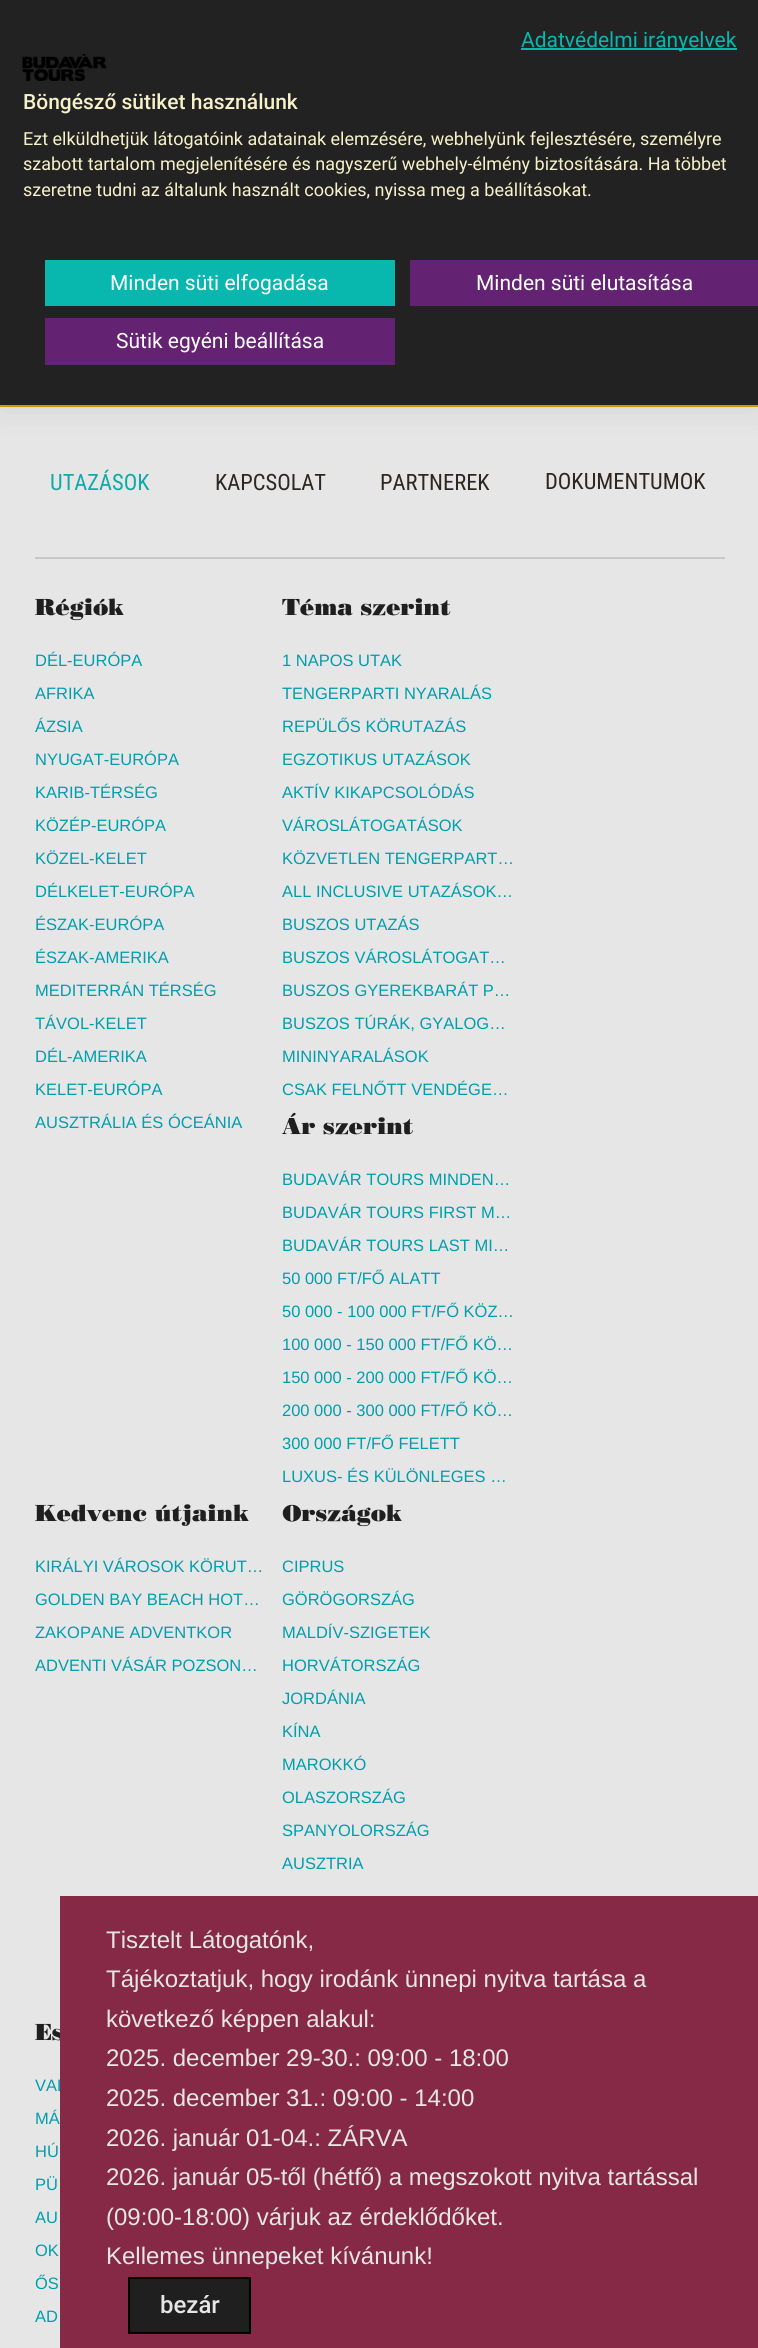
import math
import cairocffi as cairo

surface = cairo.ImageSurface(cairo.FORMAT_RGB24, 758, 2348)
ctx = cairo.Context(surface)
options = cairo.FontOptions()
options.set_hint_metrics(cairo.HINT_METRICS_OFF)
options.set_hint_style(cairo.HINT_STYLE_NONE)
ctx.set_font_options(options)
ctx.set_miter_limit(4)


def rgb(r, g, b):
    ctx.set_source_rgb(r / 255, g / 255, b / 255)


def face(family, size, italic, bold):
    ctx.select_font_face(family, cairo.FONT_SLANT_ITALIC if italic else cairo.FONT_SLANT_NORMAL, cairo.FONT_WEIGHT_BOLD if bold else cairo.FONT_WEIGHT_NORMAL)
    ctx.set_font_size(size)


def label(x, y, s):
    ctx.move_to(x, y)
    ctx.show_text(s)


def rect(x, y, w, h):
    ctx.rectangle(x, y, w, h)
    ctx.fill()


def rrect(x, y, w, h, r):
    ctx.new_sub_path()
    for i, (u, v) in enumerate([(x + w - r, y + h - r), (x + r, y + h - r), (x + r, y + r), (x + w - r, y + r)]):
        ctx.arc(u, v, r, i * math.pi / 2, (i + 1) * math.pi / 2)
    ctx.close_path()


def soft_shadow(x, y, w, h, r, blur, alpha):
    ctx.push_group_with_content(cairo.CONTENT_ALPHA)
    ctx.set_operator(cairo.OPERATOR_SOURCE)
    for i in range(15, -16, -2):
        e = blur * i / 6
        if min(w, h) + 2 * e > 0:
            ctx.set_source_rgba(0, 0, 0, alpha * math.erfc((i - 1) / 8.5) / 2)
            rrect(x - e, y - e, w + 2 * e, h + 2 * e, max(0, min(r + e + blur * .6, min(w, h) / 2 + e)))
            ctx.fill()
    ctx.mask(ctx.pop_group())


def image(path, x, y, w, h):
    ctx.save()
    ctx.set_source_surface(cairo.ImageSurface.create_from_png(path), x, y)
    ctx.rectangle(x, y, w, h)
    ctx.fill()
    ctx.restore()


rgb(230, 230, 230)
ctx.paint()
rgb(204, 165, 0)
rect(0, 405, 758, 2)
rgb(0, 0, 0)
soft_shadow(0, 0, 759, 405, 0, 18, 0.1)
rgb(34, 34, 34)
rect(0, 0, 758, 405)
rgb(8, 183, 173)
rect(521, 48, 216, 2)
face('Roboto', 21, 0, 0)
label(521, 47, 'Adatvédelmi irányelvek')
image('image0.png', 22, 54, 85, 27)
face('Roboto Medium', 21, 0, 0)
rgb(247, 241, 201)
label(23, 109, 'Böngésző sütiket használunk')
face('Roboto', 18, 0, 0)
label(23, 145, 'Ezt elküldhetjük látogatóink adatainak elemzésére, webhelyünk fejlesztésére, személyre')
label(23, 170, 'szabott tartalom megjelenítésére és nagyszerű webhely-élmény biztosítására. Ha többet')
label(23, 196, 'szeretne tudni az általunk használt cookies, nyissa meg a beállításokat.')
rgb(8, 183, 173)
rect(45, 260, 350, 46)
face('Roboto', 21, 0, 0)
rgb(255, 255, 255)
label(110, 290, 'Minden süti elfogadása')
rgb(100, 35, 114)
rect(410, 260, 348, 46)
rgb(255, 255, 255)
label(476, 290, 'Minden süti elutasítása')
rgb(100, 35, 114)
rect(45, 318, 350, 47)
rgb(255, 255, 255)
label(116, 348, 'Sütik egyéni beállítása')
rgb(199, 199, 199)
rect(35, 557, 690, 2)
face('Roboto Condensed', 22.5, 0, 0)
rgb(14, 170, 168)
label(50, 490, 'UTAZÁSOK')
rgb(44, 39, 33)
label(215, 490, 'KAPCSOLAT')
label(380, 490, 'PARTNEREK')
label(545, 489, 'DOKUMENTUMOK')
face('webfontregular', 22.5, 0, 0)
rgb(31, 31, 31)
label(35, 615, 'Régiók')
face('Liberation Sans', 16.5, 0, 0)
rgb(0, 158, 173)
label(35, 666, 'DÉL-EURÓPA')
label(35, 699, 'AFRIKA')
label(35, 732, 'ÁZSIA')
label(35, 765, 'NYUGAT-EURÓPA')
label(35, 798, 'KARIB-TÉRSÉG')
label(35, 831, 'KÖZÉP-EURÓPA')
label(35, 864, 'KÖZEL-KELET')
label(35, 897, 'DÉLKELET-EURÓPA')
label(35, 930, 'ÉSZAK-EURÓPA')
label(35, 963, 'ÉSZAK-AMERIKA')
label(35, 996, 'MEDITERRÁN TÉRSÉG')
label(35, 1029, 'TÁVOL-KELET')
label(35, 1062, 'DÉL-AMERIKA')
label(35, 1095, 'KELET-EURÓPA')
label(35, 1128, 'AUSZTRÁLIA ÉS ÓCEÁNIA')
face('webfontregular', 22.5, 0, 0)
rgb(31, 31, 31)
label(282, 615, 'Téma szerint')
face('Liberation Sans', 16.5, 0, 0)
rgb(0, 158, 173)
label(282, 666, '1 NAPOS UTAK')
label(282, 699, 'TENGERPARTI NYARALÁS')
label(282, 732, 'REPÜLŐS KÖRUTAZÁS')
label(282, 765, 'EGZOTIKUS UTAZÁSOK')
label(282, 798, 'AKTÍV KIKAPCSOLÓDÁS')
label(282, 831, 'VÁROSLÁTOGATÁSOK')
label(282, 864, 'KÖZVETLEN TENGERPART…')
label(282, 897, 'ALL INCLUSIVE UTAZÁSOK…')
label(282, 930, 'BUSZOS UTAZÁS')
label(282, 963, 'BUSZOS VÁROSLÁTOGAT…')
label(282, 996, 'BUSZOS GYEREKBARÁT P…')
label(282, 1029, 'BUSZOS TÚRÁK, GYALOG…')
label(282, 1062, 'MININYARALÁSOK')
label(282, 1095, 'CSAK FELNŐTT VENDÉGE…')
face('webfontregular', 22.5, 0, 0)
rgb(31, 31, 31)
label(282, 1134, 'Ár szerint')
face('Liberation Sans', 16.5, 0, 0)
rgb(0, 158, 173)
label(282, 1185, 'BUDAVÁR TOURS MINDEN…')
label(282, 1218, 'BUDAVÁR TOURS FIRST M…')
label(282, 1251, 'BUDAVÁR TOURS LAST MI…')
label(282, 1284, '50 000 FT/FŐ ALATT')
label(282, 1317, '50 000 - 100 000 FT/FŐ KÖZ…')
label(282, 1350, '100 000 - 150 000 FT/FŐ KÖ…')
label(282, 1383, '150 000 - 200 000 FT/FŐ KÖ…')
label(282, 1416, '200 000 - 300 000 FT/FŐ KÖ…')
label(282, 1449, '300 000 FT/FŐ FELETT')
label(282, 1482, 'LUXUS- ÉS KÜLÖNLEGES …')
face('webfontregular', 22.5, 0, 0)
rgb(31, 31, 31)
label(35, 1521, 'Kedvenc útjaink')
face('Liberation Sans', 16.5, 0, 0)
rgb(0, 158, 173)
label(35, 1572, 'KIRÁLYI VÁROSOK KÖRUT…')
label(35, 1605, 'GOLDEN BAY BEACH HOT…')
label(35, 1638, 'ZAKOPANE ADVENTKOR')
label(35, 1671, 'ADVENTI VÁSÁR POZSON…')
face('webfontregular', 22.5, 0, 0)
rgb(31, 31, 31)
label(282, 1521, 'Országok')
face('Liberation Sans', 16.5, 0, 0)
rgb(0, 158, 173)
label(282, 1572, 'CIPRUS')
label(282, 1605, 'GÖRÖGORSZÁG')
label(282, 1638, 'MALDÍV-SZIGETEK')
label(282, 1671, 'HORVÁTORSZÁG')
label(282, 1704, 'JORDÁNIA')
label(282, 1737, 'KÍNA')
label(282, 1770, 'MAROKKÓ')
label(282, 1803, 'OLASZORSZÁG')
label(282, 1836, 'SPANYOLORSZÁG')
label(282, 1869, 'AUSZTRIA')
face('webfontregular', 22.5, 0, 0)
rgb(31, 31, 31)
label(35, 2040, 'Es')
face('Liberation Sans', 16.5, 0, 0)
rgb(0, 158, 173)
label(35, 2091, 'VAL')
label(35, 2124, 'MÁ')
label(35, 2157, 'HÚ')
label(35, 2190, 'PÜ')
label(35, 2223, 'AU')
label(35, 2256, 'OK')
label(35, 2289, 'ŐS')
label(35, 2322, 'AD')
rgb(133, 41, 71)
rect(60, 1896, 698, 452)
face('Liberation Sans', 24, 0, 0)
rgb(230, 230, 230)
label(106, 1948, 'Tisztelt Látogatónk,')
label(106, 1987, 'Tájékoztatjuk, hogy irodánk ünnepi nyitva tartása a')
label(106, 2027, 'következő képpen alakul:')
label(106, 2066, '2025. december 29-30.: 09:00 - 18:00')
label(106, 2106, '2025. december 31.: 09:00 - 14:00')
label(106, 2146, '2026. január 01-04.: ZÁRVA')
label(106, 2185, '2026. január 05-től (hétfő) a megszokott nyitva tartással')
label(106, 2225, '(09:00-18:00) várjuk az érdeklődőket.')
label(106, 2264, 'Kellemes ünnepeket kívánunk!')
rgb(31, 31, 31)
ctx.rectangle(129, 2278, 121, 55)
ctx.fill_preserve()
rgb(0, 0, 0)
ctx.stroke()
face('Roboto Medium', 24, 0, 0)
rgb(230, 230, 230)
label(160, 2313, 'bezár')
surface.write_to_png('render.png')
